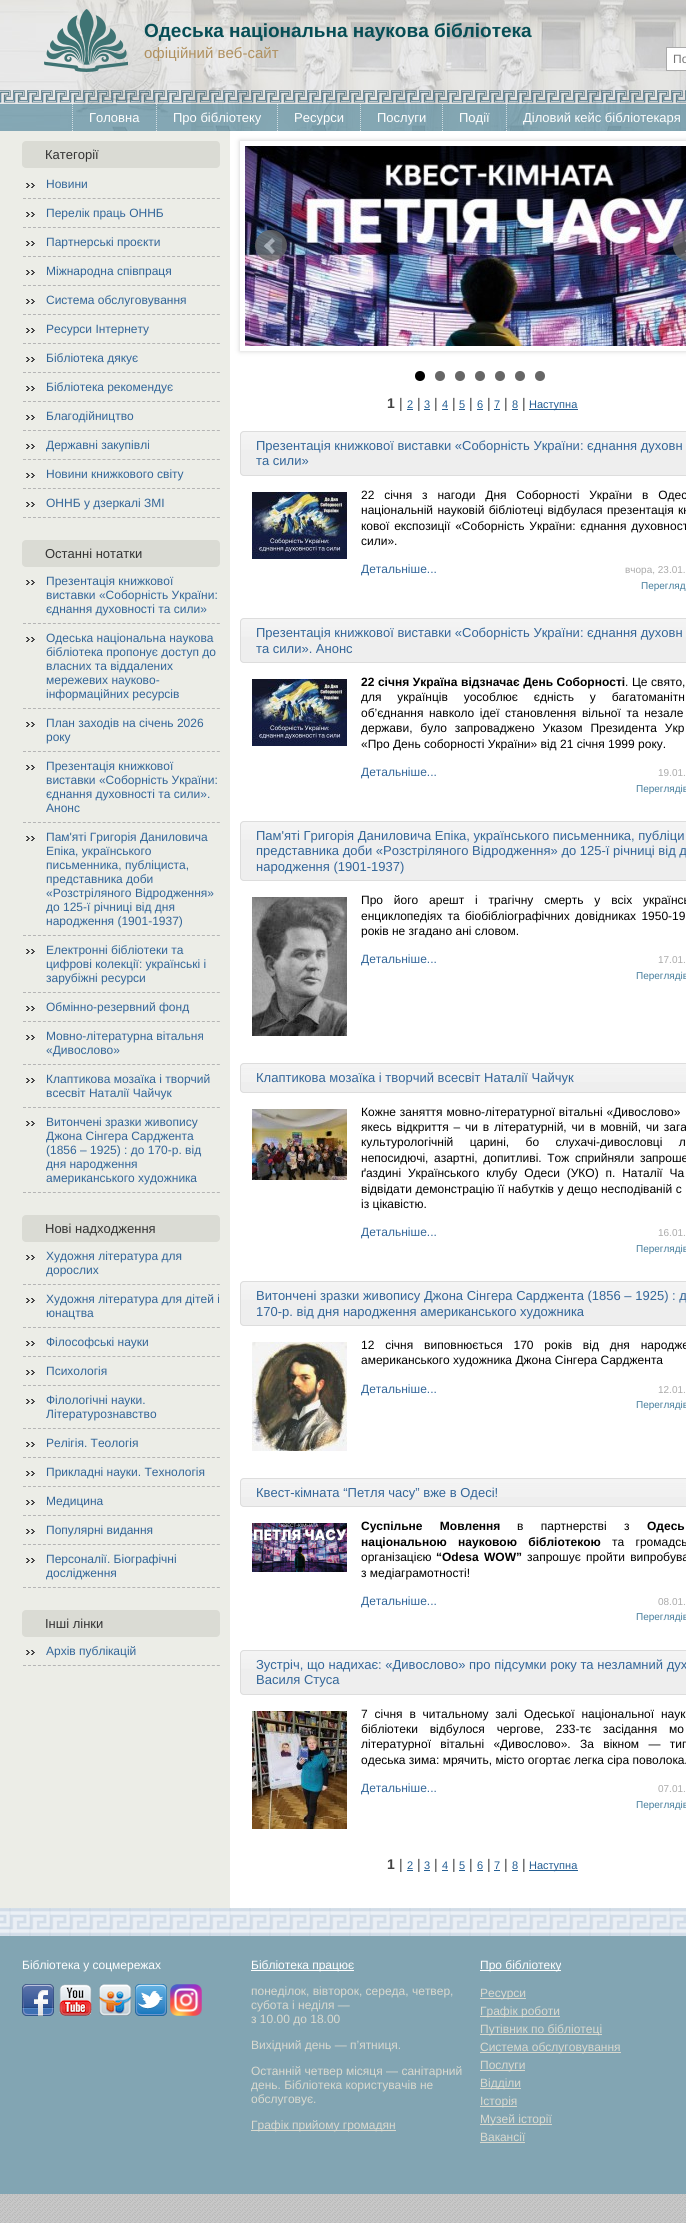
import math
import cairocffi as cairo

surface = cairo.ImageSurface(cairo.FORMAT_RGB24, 686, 2223)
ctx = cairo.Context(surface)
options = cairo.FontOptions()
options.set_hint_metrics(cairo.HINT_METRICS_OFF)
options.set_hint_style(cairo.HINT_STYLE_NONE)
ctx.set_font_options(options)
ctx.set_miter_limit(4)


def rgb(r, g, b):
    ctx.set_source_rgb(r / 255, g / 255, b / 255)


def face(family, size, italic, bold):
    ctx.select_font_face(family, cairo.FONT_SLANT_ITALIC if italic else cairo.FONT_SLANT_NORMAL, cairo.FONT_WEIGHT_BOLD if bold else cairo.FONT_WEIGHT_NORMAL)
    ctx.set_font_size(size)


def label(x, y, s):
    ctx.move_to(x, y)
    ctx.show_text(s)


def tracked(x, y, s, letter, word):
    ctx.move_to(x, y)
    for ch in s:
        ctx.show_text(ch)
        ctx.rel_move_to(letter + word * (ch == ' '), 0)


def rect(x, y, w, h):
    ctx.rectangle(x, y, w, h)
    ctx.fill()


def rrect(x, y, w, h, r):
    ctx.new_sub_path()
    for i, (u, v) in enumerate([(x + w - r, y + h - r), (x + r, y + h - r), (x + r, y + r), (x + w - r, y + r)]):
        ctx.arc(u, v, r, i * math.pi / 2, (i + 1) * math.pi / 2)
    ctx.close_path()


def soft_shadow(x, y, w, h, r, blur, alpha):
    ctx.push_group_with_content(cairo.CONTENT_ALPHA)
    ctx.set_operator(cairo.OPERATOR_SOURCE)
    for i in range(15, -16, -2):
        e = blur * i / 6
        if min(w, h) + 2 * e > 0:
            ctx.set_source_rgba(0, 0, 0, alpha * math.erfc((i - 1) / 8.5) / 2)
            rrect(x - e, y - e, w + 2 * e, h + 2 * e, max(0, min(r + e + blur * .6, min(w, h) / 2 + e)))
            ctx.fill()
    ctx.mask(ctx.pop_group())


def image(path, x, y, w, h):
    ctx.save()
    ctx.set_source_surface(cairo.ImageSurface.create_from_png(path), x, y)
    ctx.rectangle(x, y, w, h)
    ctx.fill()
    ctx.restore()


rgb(255, 255, 255)
ctx.paint()
image('image0.png', 0, 2194, 686, 29)
image('image1.png', 0, 0, 686, 131)
image('image2.png', 44, 9, 84, 63)
face('Liberation Sans', 19, 0, 1)
rgb(7, 78, 86)
label(144, 37, 'Одеська національна наукова бібліотека')
face('Liberation Sans', 15, 0, 0)
rgb(176, 145, 96)
label(144, 58, 'офіційний веб-сайт')
rgb(255, 255, 255)
ctx.rectangle(666.5, 47.5, 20, 23)
ctx.fill_preserve()
rgb(170, 170, 170)
ctx.set_line_width(1)
ctx.stroke()
face('Liberation Sans', 12, 0, 0)
rgb(117, 117, 117)
label(673, 63, 'По')
image('image3.png', 0, 90, 686, 13)
ctx.set_source_rgba(0.192, 0.443, 0.537, 0.55)
rect(0, 104, 686, 27)
ctx.new_path()
ctx.move_to(156.5, 104)
ctx.line_to(156.5, 131)
ctx.set_source_rgba(1, 1, 1, 0.65)
ctx.set_dash([1, 1])
ctx.stroke()
ctx.new_path()
ctx.move_to(72.5, 104)
ctx.line_to(72.5, 131)
rgb(212, 224, 229)
ctx.stroke()
face('Liberation Sans', 13, 0, 0)
rgb(255, 255, 255)
label(89, 122, 'Головна')
ctx.new_path()
ctx.move_to(277.5, 104)
ctx.line_to(277.5, 131)
rgb(212, 224, 228)
ctx.stroke()
rgb(255, 255, 255)
label(173, 122, 'Про бібліотеку')
ctx.new_path()
ctx.move_to(360.5, 104)
ctx.line_to(360.5, 131)
rgb(212, 224, 228)
ctx.stroke()
rgb(255, 255, 255)
label(294, 122, 'Ресурси')
ctx.new_path()
ctx.move_to(442.5, 104)
ctx.line_to(442.5, 131)
rgb(210, 223, 227)
ctx.stroke()
rgb(255, 255, 255)
label(377, 122, 'Послуги')
ctx.new_path()
ctx.move_to(506.5, 104)
ctx.line_to(506.5, 131)
ctx.set_source_rgba(1, 1, 1, 0.65)
ctx.stroke()
rgb(255, 255, 255)
label(459, 122, 'Події')
label(523, 122, 'Діловий кейс бібліотекаря')
rgb(236, 237, 231)
rect(0, 131, 230, 1777)
rgb(218, 219, 212)
rrect(22, 141, 198, 27, 4)
ctx.fill()
rgb(51, 51, 51)
label(45, 159, 'Категорії')
image('image4.png', 26, 183, 9, 5)
ctx.new_path()
ctx.move_to(23, 198.5)
ctx.line_to(220, 198.5)
rgb(181, 181, 181)
ctx.set_dash([3, 1.97])
ctx.stroke()
face('Liberation Sans', 12, 0, 0)
rgb(51, 102, 153)
label(46, 188, 'Новини')
image('image4.png', 26, 212, 9, 5)
ctx.new_path()
ctx.move_to(23, 227.5)
ctx.line_to(220, 227.5)
rgb(181, 181, 181)
ctx.stroke()
rgb(51, 102, 153)
label(46, 217, 'Перелік праць ОННБ')
image('image4.png', 26, 241, 9, 5)
ctx.new_path()
ctx.move_to(23, 256.5)
ctx.line_to(220, 256.5)
rgb(181, 181, 181)
ctx.stroke()
rgb(51, 102, 153)
label(46, 246, 'Партнерські проєкти')
image('image4.png', 26, 270, 9, 5)
ctx.new_path()
ctx.move_to(23, 285.5)
ctx.line_to(220, 285.5)
rgb(181, 181, 181)
ctx.stroke()
rgb(51, 102, 153)
label(46, 275, 'Міжнародна співпраця')
image('image4.png', 26, 299, 9, 5)
ctx.new_path()
ctx.move_to(23, 314.5)
ctx.line_to(220, 314.5)
rgb(181, 181, 181)
ctx.stroke()
rgb(51, 102, 153)
label(46, 304, 'Система обслуговування')
image('image4.png', 26, 328, 9, 5)
ctx.new_path()
ctx.move_to(23, 343.5)
ctx.line_to(220, 343.5)
rgb(181, 181, 181)
ctx.stroke()
rgb(51, 102, 153)
label(46, 333, 'Ресурси Інтернету')
image('image4.png', 26, 357, 9, 5)
ctx.new_path()
ctx.move_to(23, 372.5)
ctx.line_to(220, 372.5)
rgb(181, 181, 181)
ctx.stroke()
rgb(51, 102, 153)
label(46, 362, 'Бібліотека дякує')
image('image4.png', 26, 386, 9, 5)
ctx.new_path()
ctx.move_to(23, 401.5)
ctx.line_to(220, 401.5)
rgb(181, 181, 181)
ctx.stroke()
rgb(51, 102, 153)
label(46, 391, 'Бібліотека рекомендує')
image('image4.png', 26, 415, 9, 5)
ctx.new_path()
ctx.move_to(23, 430.5)
ctx.line_to(220, 430.5)
rgb(181, 181, 181)
ctx.stroke()
rgb(51, 102, 153)
label(46, 420, 'Благодійництво')
image('image4.png', 26, 444, 9, 5)
ctx.new_path()
ctx.move_to(23, 459.5)
ctx.line_to(220, 459.5)
rgb(181, 181, 181)
ctx.stroke()
rgb(51, 102, 153)
label(46, 449, 'Державні закупівлі')
image('image4.png', 26, 473, 9, 5)
ctx.new_path()
ctx.move_to(23, 488.5)
ctx.line_to(220, 488.5)
rgb(181, 181, 181)
ctx.stroke()
rgb(51, 102, 153)
label(46, 478, 'Новини книжкового світу')
image('image4.png', 26, 502, 9, 5)
ctx.new_path()
ctx.move_to(23, 517.5)
ctx.line_to(220, 517.5)
rgb(181, 181, 181)
ctx.stroke()
rgb(51, 102, 153)
label(46, 507, 'ОННБ у дзеркалі ЗМІ')
rgb(218, 219, 212)
rrect(22, 540, 198, 27, 4)
ctx.fill()
face('Liberation Sans', 13, 0, 0)
rgb(51, 51, 51)
label(45, 558, 'Останні нотатки')
image('image4.png', 26, 580, 9, 5)
ctx.new_path()
ctx.move_to(23, 623.5)
ctx.line_to(220, 623.5)
rgb(181, 181, 181)
ctx.stroke()
face('Liberation Sans', 12, 0, 0)
rgb(51, 102, 153)
label(46, 585, 'Презентація книжкової')
label(46, 599, 'виставки «Соборність України:')
label(46, 613, 'єднання духовності та сили»')
image('image4.png', 26, 637, 9, 5)
ctx.new_path()
ctx.move_to(23, 708.5)
ctx.line_to(220, 708.5)
rgb(181, 181, 181)
ctx.stroke()
rgb(51, 102, 153)
label(46, 642, 'Одеська національна наукова')
label(46, 656, 'бібліотека пропонує доступ до')
label(46, 670, 'власних та віддалених')
label(46, 684, 'мережевих науково-')
label(46, 698, 'інформаційних ресурсів')
image('image4.png', 26, 722, 9, 5)
ctx.new_path()
ctx.move_to(23, 751.5)
ctx.line_to(220, 751.5)
rgb(181, 181, 181)
ctx.stroke()
rgb(51, 102, 153)
label(46, 727, 'План заходів на січень 2026')
label(46, 741, 'року')
image('image4.png', 26, 765, 9, 5)
ctx.new_path()
ctx.move_to(23, 822.5)
ctx.line_to(220, 822.5)
rgb(181, 181, 181)
ctx.stroke()
rgb(51, 102, 153)
label(46, 770, 'Презентація книжкової')
label(46, 784, 'виставки «Соборність України:')
label(46, 798, 'єднання духовності та сили».')
label(46, 812, 'Анонс')
image('image4.png', 26, 836, 9, 5)
ctx.new_path()
ctx.move_to(23, 935.5)
ctx.line_to(220, 935.5)
rgb(181, 181, 181)
ctx.stroke()
rgb(51, 102, 153)
label(46, 841, 'Пам\'яті Григорія Даниловича')
label(46, 855, 'Епіка, українського')
label(46, 869, 'письменника, публіциста,')
label(46, 883, 'представника доби')
label(46, 897, '«Розстріляного Відродження»')
label(46, 911, 'до 125-ї річниці від дня')
label(46, 925, 'народження (1901-1937)')
image('image4.png', 26, 949, 9, 5)
ctx.new_path()
ctx.move_to(23, 992.5)
ctx.line_to(220, 992.5)
rgb(181, 181, 181)
ctx.stroke()
rgb(51, 102, 153)
label(46, 954, 'Електронні бібліотеки та')
label(46, 968, 'цифрові колекції: українські і')
label(46, 982, 'зарубіжні ресурси')
image('image4.png', 26, 1006, 9, 5)
ctx.new_path()
ctx.move_to(23, 1021.5)
ctx.line_to(220, 1021.5)
rgb(181, 181, 181)
ctx.stroke()
rgb(51, 102, 153)
label(46, 1011, 'Обмінно-резервний фонд')
image('image4.png', 26, 1035, 9, 5)
ctx.new_path()
ctx.move_to(23, 1064.5)
ctx.line_to(220, 1064.5)
rgb(181, 181, 181)
ctx.stroke()
rgb(51, 102, 153)
label(46, 1040, 'Мовно-літературна вітальня')
label(46, 1054, '«Дивослово»')
image('image4.png', 26, 1078, 9, 5)
ctx.new_path()
ctx.move_to(23, 1107.5)
ctx.line_to(220, 1107.5)
rgb(181, 181, 181)
ctx.stroke()
rgb(51, 102, 153)
label(46, 1083, 'Клаптикова мозаїка і творчий')
label(46, 1097, 'всесвіт Наталії Чайчук')
image('image4.png', 26, 1121, 9, 5)
ctx.new_path()
ctx.move_to(23, 1192.5)
ctx.line_to(220, 1192.5)
rgb(181, 181, 181)
ctx.stroke()
rgb(51, 102, 153)
label(46, 1126, 'Витончені зразки живопису')
label(46, 1140, 'Джона Сінгера Сарджента')
label(46, 1154, '(1856 – 1925) : до 170-р. від')
label(46, 1168, 'дня народження')
label(46, 1182, 'американського художника')
rgb(218, 219, 212)
rrect(22, 1215, 198, 27, 4)
ctx.fill()
face('Liberation Sans', 13, 0, 0)
rgb(51, 51, 51)
label(45, 1233, 'Нові надходження')
image('image4.png', 26, 1255, 9, 5)
ctx.new_path()
ctx.move_to(23, 1284.5)
ctx.line_to(220, 1284.5)
rgb(181, 181, 181)
ctx.stroke()
face('Liberation Sans', 12, 0, 0)
rgb(51, 102, 153)
label(46, 1260, 'Художня література для')
label(46, 1274, 'дорослих')
image('image4.png', 26, 1298, 9, 5)
ctx.new_path()
ctx.move_to(23, 1327.5)
ctx.line_to(220, 1327.5)
rgb(181, 181, 181)
ctx.stroke()
rgb(51, 102, 153)
label(46, 1303, 'Художня література для дітей і')
label(46, 1317, 'юнацтва')
image('image4.png', 26, 1341, 9, 5)
ctx.new_path()
ctx.move_to(23, 1356.5)
ctx.line_to(220, 1356.5)
rgb(181, 181, 181)
ctx.stroke()
rgb(51, 102, 153)
label(46, 1346, 'Філософські науки')
image('image4.png', 26, 1370, 9, 5)
ctx.new_path()
ctx.move_to(23, 1385.5)
ctx.line_to(220, 1385.5)
rgb(181, 181, 181)
ctx.stroke()
rgb(51, 102, 153)
label(46, 1375, 'Психологія')
image('image4.png', 26, 1399, 9, 5)
ctx.new_path()
ctx.move_to(23, 1428.5)
ctx.line_to(220, 1428.5)
rgb(181, 181, 181)
ctx.stroke()
rgb(51, 102, 153)
label(46, 1404, 'Філологічні науки.')
label(46, 1418, 'Літературознавство')
image('image4.png', 26, 1442, 9, 5)
ctx.new_path()
ctx.move_to(23, 1457.5)
ctx.line_to(220, 1457.5)
rgb(181, 181, 181)
ctx.stroke()
rgb(51, 102, 153)
label(46, 1447, 'Релігія. Теологія')
image('image4.png', 26, 1471, 9, 5)
ctx.new_path()
ctx.move_to(23, 1486.5)
ctx.line_to(220, 1486.5)
rgb(181, 181, 181)
ctx.stroke()
rgb(51, 102, 153)
label(46, 1476, 'Прикладні науки. Технологія')
image('image4.png', 26, 1500, 9, 5)
ctx.new_path()
ctx.move_to(23, 1515.5)
ctx.line_to(220, 1515.5)
rgb(181, 181, 181)
ctx.stroke()
rgb(51, 102, 153)
label(46, 1505, 'Медицина')
image('image4.png', 26, 1529, 9, 5)
ctx.new_path()
ctx.move_to(23, 1544.5)
ctx.line_to(220, 1544.5)
rgb(181, 181, 181)
ctx.stroke()
rgb(51, 102, 153)
label(46, 1534, 'Популярні видання')
image('image4.png', 26, 1558, 9, 5)
ctx.new_path()
ctx.move_to(23, 1587.5)
ctx.line_to(220, 1587.5)
rgb(181, 181, 181)
ctx.stroke()
rgb(51, 102, 153)
label(46, 1563, 'Персоналії. Біографічні')
label(46, 1577, 'дослідження')
rgb(218, 219, 212)
rrect(22, 1610, 198, 27, 4)
ctx.fill()
face('Liberation Sans', 13, 0, 0)
rgb(51, 51, 51)
label(45, 1628, 'Інші лінки')
image('image4.png', 26, 1650, 9, 5)
ctx.new_path()
ctx.move_to(23, 1665.5)
ctx.line_to(220, 1665.5)
rgb(181, 181, 181)
ctx.stroke()
face('Liberation Sans', 12, 0, 0)
rgb(51, 102, 153)
label(46, 1655, 'Архів публікацій')
ctx.save()
ctx.set_fill_rule(cairo.FILL_RULE_EVEN_ODD)
ctx.new_path()
ctx.move_to(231, 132)
ctx.line_to(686, 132)
ctx.line_to(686, 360)
ctx.line_to(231, 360)
ctx.close_path()
ctx.move_to(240, 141)
ctx.line_to(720, 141)
ctx.line_to(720, 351)
ctx.line_to(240, 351)
ctx.close_path()
ctx.clip()
rgb(204, 204, 204)
soft_shadow(240, 141, 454, 210, 0, 2.5, 1)
ctx.restore()
image('image5.png', 245, 146, 441, 200)
image('image6.png', 255, 230, 32, 31)
image('image7.png', 673, 230, 13, 31)
rgb(0, 0, 0)
ctx.arc(420, 376, 5, 0, 2 * math.pi)
ctx.fill()
rgb(102, 102, 102)
ctx.arc(440, 376, 5, 0, 2 * math.pi)
ctx.fill()
ctx.arc(460, 376, 5, 0, 2 * math.pi)
ctx.fill()
ctx.arc(480, 376, 5, 0, 2 * math.pi)
ctx.fill()
ctx.arc(500, 376, 5, 0, 2 * math.pi)
ctx.fill()
ctx.arc(520, 376, 5, 0, 2 * math.pi)
ctx.fill()
ctx.arc(540, 376, 5, 0, 2 * math.pi)
ctx.fill()
face('Liberation Sans', 14, 0, 1)
rgb(66, 66, 66)
label(387, 408, '1')
face('Liberation Sans', 14, 0, 0)
label(399, 408, '|')
face('Liberation Sans', 11, 0, 0)
rgb(36, 94, 147)
label(407, 408, '2')
rect(407, 409, 6, 1)
face('Liberation Sans', 14, 0, 0)
rgb(66, 66, 66)
label(417, 408, '|')
face('Liberation Sans', 11, 0, 0)
rgb(36, 94, 147)
label(424, 408, '3')
rect(424, 409, 6, 1)
face('Liberation Sans', 14, 0, 0)
rgb(66, 66, 66)
label(434, 408, '|')
face('Liberation Sans', 11, 0, 0)
rgb(36, 94, 147)
label(442, 408, '4')
rect(442, 409, 6, 1)
face('Liberation Sans', 14, 0, 0)
rgb(66, 66, 66)
label(452, 408, '|')
face('Liberation Sans', 11, 0, 0)
rgb(36, 94, 147)
label(459, 408, '5')
rect(459, 409, 6, 1)
face('Liberation Sans', 14, 0, 0)
rgb(66, 66, 66)
label(469, 408, '|')
face('Liberation Sans', 11, 0, 0)
rgb(36, 94, 147)
label(477, 408, '6')
rect(477, 409, 6, 1)
face('Liberation Sans', 14, 0, 0)
rgb(66, 66, 66)
label(487, 408, '|')
face('Liberation Sans', 11, 0, 0)
rgb(36, 94, 147)
label(494, 408, '7')
rect(494, 409, 6, 1)
face('Liberation Sans', 14, 0, 0)
rgb(66, 66, 66)
label(504, 408, '|')
face('Liberation Sans', 11, 0, 0)
rgb(36, 94, 147)
label(512, 408, '8')
rect(512, 409, 6, 1)
face('Liberation Sans', 14, 0, 0)
rgb(66, 66, 66)
label(522, 408, '|')
rgb(36, 94, 147)
rect(529, 409, 49, 1)
face('Liberation Sans', 11, 0, 0)
label(529, 408, 'Наступна')
rgb(238, 238, 238)
rrect(240, 431, 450, 45, 4)
ctx.fill()
gradient = cairo.LinearGradient(480, 432, 480, 462)
gradient.add_color_stop_rgba(0, 0.957, 0.957, 0.957, 1)
gradient.add_color_stop_rgba(1, 0.933, 0.933, 0.933, 1)
ctx.set_source(gradient)
rect(241, 432, 445, 18)
rrect(240.5, 431.5, 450, 44, 3.5)
rgb(221, 221, 221)
ctx.set_dash([])
ctx.stroke()
face('Liberation Sans', 13, 0, 0)
rgb(51, 102, 153)
label(256, 450, 'Презентація книжкової виставки «Соборність України: єднання духовн')
label(256, 465, 'та сили»')
image('image8.png', 252, 492, 95, 67)
face('Liberation Sans', 12, 0, 0)
rgb(0, 0, 0)
tracked(361, 499, '22 січня з нагоди Дня Соборності України в Одес', 0, 6.5)
tracked(361, 514, 'національній науковій бібліотеці відбулася презентація кн', 0, 1)
tracked(361, 530, 'кової експозиції «Соборність України: єднання духовност', 0, 1.5)
label(361, 545, 'сили».')
rgb(51, 102, 153)
label(361, 573, 'Детальніше...')
face('Liberation Sans', 10, 0, 0)
rgb(170, 170, 170)
label(625, 573, 'вчора, 23.01.')
rgb(70, 125, 156)
label(641, 589, 'Перегляд')
rgb(238, 238, 238)
rrect(240, 618, 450, 45, 4)
ctx.fill()
gradient = cairo.LinearGradient(480, 619, 480, 649)
gradient.add_color_stop_rgba(0, 0.957, 0.957, 0.957, 1)
gradient.add_color_stop_rgba(1, 0.933, 0.933, 0.933, 1)
ctx.set_source(gradient)
rect(241, 619, 445, 18)
rrect(240.5, 618.5, 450, 44, 3.5)
rgb(221, 221, 221)
ctx.stroke()
face('Liberation Sans', 13, 0, 0)
rgb(51, 102, 153)
label(256, 637, 'Презентація книжкової виставки «Соборність України: єднання духовн')
label(256, 653, 'та сили». Анонс')
image('image9.png', 252, 679, 95, 67)
face('Liberation Sans', 12, 0, 1)
rgb(0, 0, 0)
tracked(361, 686, '22 січня Україна відзначає День Соборності', 0, 0.25)
face('Liberation Sans', 12, 0, 0)
tracked(625, 686, '. Це свято,', 0, 0.25)
tracked(361, 701, 'для українців уособлює єдність у багатоманітн', 0, 12.5)
tracked(361, 717, 'об’єднання навколо ідеї становлення вільної та незале', 0, 2.25)
tracked(361, 732, 'держави, було запроваджено Указом Президента Укр', 0, 4.5)
label(361, 748, '«Про День соборності України» від 21 січня 1999 року.')
rgb(51, 102, 153)
label(361, 776, 'Детальніше...')
face('Liberation Sans', 10, 0, 0)
rgb(170, 170, 170)
label(658, 776, '19.01.')
rgb(70, 125, 156)
label(636, 792, 'Переглядів')
rgb(238, 238, 238)
rrect(240, 821, 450, 60, 4)
ctx.fill()
gradient = cairo.LinearGradient(480, 822, 480, 852)
gradient.add_color_stop_rgba(0, 0.957, 0.957, 0.957, 1)
gradient.add_color_stop_rgba(1, 0.933, 0.933, 0.933, 1)
ctx.set_source(gradient)
rect(241, 822, 445, 18)
rrect(240.5, 821.5, 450, 59, 3.5)
rgb(221, 221, 221)
ctx.stroke()
face('Liberation Sans', 13, 0, 0)
rgb(51, 102, 153)
label(256, 840, 'Пам\'яті Григорія Даниловича Епіка, українського письменника, публіци')
label(256, 855, 'представника доби «Розстріляного Відродження» до 125-ї річниці від д')
label(256, 871, 'народження (1901-1937)')
image('image10.png', 252, 897, 95, 139)
face('Liberation Sans', 12, 0, 0)
rgb(0, 0, 0)
tracked(361, 904, 'Про його арешт і трагічну смерть у всіх українсь', 0, 7.5)
tracked(361, 920, 'енциклопедіях та біобібліографічних довідниках 1950-19', 0, 2)
label(361, 935, 'років не згадано ані словом.')
rgb(51, 102, 153)
label(361, 963, 'Детальніше...')
face('Liberation Sans', 10, 0, 0)
rgb(170, 170, 170)
label(658, 963, '17.01.')
rgb(70, 125, 156)
label(636, 979, 'Переглядів')
rgb(238, 238, 238)
rrect(240, 1063, 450, 30, 4)
ctx.fill()
gradient = cairo.LinearGradient(480, 1064, 480, 1094)
gradient.add_color_stop_rgba(0, 0.957, 0.957, 0.957, 1)
gradient.add_color_stop_rgba(1, 0.957, 0.957, 0.957, 0)
ctx.set_source(gradient)
rect(241, 1064, 445, 18)
rrect(240.5, 1063.5, 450, 29, 3.5)
rgb(221, 221, 221)
ctx.stroke()
face('Liberation Sans', 13, 0, 0)
rgb(51, 102, 153)
label(256, 1082, 'Клаптикова мозаїка і творчий всесвіт Наталії Чайчук')
image('image11.png', 252, 1109, 95, 71)
face('Liberation Sans', 12, 0, 0)
rgb(0, 0, 0)
tracked(361, 1116, 'Кожне заняття мовно-літературної вітальні «Дивослово»', 0, 0.5)
tracked(361, 1131, 'якесь відкриття – чи в літературній, чи в мовній, чи зага', 0, 1.5)
tracked(361, 1146, 'культурологічній царині, бо слухачі-дивословці л', 0, 13)
tracked(361, 1162, 'непосидючі, азартні, допитливі. Тож сприйняли запроше', 0, 2.25)
tracked(361, 1177, 'ґаздині Українського клубу Одеси (УКО) п. Наталії Ча', 0, 3.5)
tracked(361, 1193, 'відвідати демонстрацію її набутків у дещо несподіваній с', 0, 0.25)
label(361, 1208, 'із цікавістю.')
rgb(51, 102, 153)
label(361, 1236, 'Детальніше...')
face('Liberation Sans', 10, 0, 0)
rgb(170, 170, 170)
label(658, 1236, '16.01.')
rgb(70, 125, 156)
label(636, 1252, 'Переглядів')
rgb(238, 238, 238)
rrect(240, 1281, 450, 45, 4)
ctx.fill()
gradient = cairo.LinearGradient(480, 1282, 480, 1312)
gradient.add_color_stop_rgba(0, 0.957, 0.957, 0.957, 1)
gradient.add_color_stop_rgba(1, 0.933, 0.933, 0.933, 1)
ctx.set_source(gradient)
rect(241, 1282, 445, 18)
rrect(240.5, 1281.5, 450, 44, 3.5)
rgb(221, 221, 221)
ctx.stroke()
face('Liberation Sans', 13, 0, 0)
rgb(51, 102, 153)
label(256, 1300, 'Витончені зразки живопису Джона Сінгера Сарджента (1856 – 1925) : д')
label(256, 1316, '170-р. від дня народження американського художника')
image('image12.png', 252, 1342, 95, 109)
face('Liberation Sans', 12, 0, 0)
rgb(0, 0, 0)
tracked(361, 1349, '12 січня виповнюється 170 років від дня народже', 0, 7.5)
label(361, 1364, 'американського художника Джона Сінгера Сарджента')
rgb(51, 102, 153)
label(361, 1393, 'Детальніше...')
face('Liberation Sans', 10, 0, 0)
rgb(170, 170, 170)
label(658, 1393, '12.01.')
rgb(70, 125, 156)
label(636, 1408, 'Переглядів')
rgb(238, 238, 238)
rrect(240, 1478, 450, 29, 4)
ctx.fill()
gradient = cairo.LinearGradient(480, 1479, 480, 1509)
gradient.add_color_stop_rgba(0, 0.957, 0.957, 0.957, 1)
gradient.add_color_stop_rgba(1, 0.957, 0.957, 0.957, 0)
ctx.set_source(gradient)
rect(241, 1479, 445, 18)
rrect(240.5, 1478.5, 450, 28, 3.5)
rgb(221, 221, 221)
ctx.stroke()
face('Liberation Sans', 13, 0, 0)
rgb(51, 102, 153)
label(256, 1497, 'Квест-кімната “Петля часу” вже в Одесі!')
image('image13.png', 252, 1523, 95, 49)
face('Liberation Sans', 12, 0, 1)
rgb(0, 0, 0)
tracked(361, 1530, 'Суспільне Мовлення', 0, 14)
face('Liberation Sans', 12, 0, 0)
tracked(517, 1530, 'в партнерстві з', 0, 14)
face('Liberation Sans', 12, 0, 1)
label(647, 1530, 'Одесь')
tracked(361, 1546, 'національною науковою бібліотекою', 0, 8)
face('Liberation Sans', 12, 0, 0)
tracked(612, 1546, 'та громадсь', 0, 8)
label(361, 1561, 'організацією')
face('Liberation Sans', 12, 0, 1)
tracked(436, 1561, '“Odesa WOW”', 0, 2)
face('Liberation Sans', 12, 0, 0)
tracked(527, 1561, 'запрошує пройти випробува', 0, 2)
label(361, 1577, 'з медіаграмотності!')
rgb(51, 102, 153)
label(361, 1605, 'Детальніше...')
face('Liberation Sans', 10, 0, 0)
rgb(170, 170, 170)
label(658, 1605, '08.01.')
rgb(70, 125, 156)
label(636, 1620, 'Переглядів')
rgb(238, 238, 238)
rrect(240, 1650, 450, 45, 4)
ctx.fill()
gradient = cairo.LinearGradient(480, 1651, 480, 1681)
gradient.add_color_stop_rgba(0, 0.957, 0.957, 0.957, 1)
gradient.add_color_stop_rgba(1, 0.933, 0.933, 0.933, 1)
ctx.set_source(gradient)
rect(241, 1651, 445, 18)
rrect(240.5, 1650.5, 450, 44, 3.5)
rgb(221, 221, 221)
ctx.stroke()
face('Liberation Sans', 13, 0, 0)
rgb(51, 102, 153)
label(256, 1669, 'Зустріч, що надихає: «Дивослово» про підсумки року та незламний дух')
label(256, 1684, 'Василя Стуса')
image('image14.png', 252, 1711, 95, 118)
face('Liberation Sans', 12, 0, 0)
rgb(0, 0, 0)
tracked(361, 1718, '7 січня в читальному залі Одеської національної наук', 0, 3.5)
tracked(361, 1733, 'бібліотеки відбулося чергове, 233-тє засідання мо', 0, 8.5)
tracked(361, 1748, 'літературної вітальні «Дивослово». За вікном — тип', 0, 6)
label(361, 1764, 'одеська зима: мрячить, місто огортає легка сіра поволока.')
rgb(51, 102, 153)
label(361, 1792, 'Детальніше...')
face('Liberation Sans', 10, 0, 0)
rgb(170, 170, 170)
label(658, 1792, '07.01.')
rgb(70, 125, 156)
label(636, 1808, 'Переглядів')
face('Liberation Sans', 14, 0, 1)
rgb(66, 66, 66)
label(387, 1869, '1')
face('Liberation Sans', 14, 0, 0)
label(399, 1869, '|')
face('Liberation Sans', 11, 0, 0)
rgb(36, 94, 147)
label(407, 1869, '2')
rect(407, 1870, 6, 1)
face('Liberation Sans', 14, 0, 0)
rgb(66, 66, 66)
label(417, 1869, '|')
face('Liberation Sans', 11, 0, 0)
rgb(36, 94, 147)
label(424, 1869, '3')
rect(424, 1870, 6, 1)
face('Liberation Sans', 14, 0, 0)
rgb(66, 66, 66)
label(434, 1869, '|')
face('Liberation Sans', 11, 0, 0)
rgb(36, 94, 147)
label(442, 1869, '4')
rect(442, 1870, 6, 1)
face('Liberation Sans', 14, 0, 0)
rgb(66, 66, 66)
label(452, 1869, '|')
face('Liberation Sans', 11, 0, 0)
rgb(36, 94, 147)
label(459, 1869, '5')
rect(459, 1870, 6, 1)
face('Liberation Sans', 14, 0, 0)
rgb(66, 66, 66)
label(469, 1869, '|')
face('Liberation Sans', 11, 0, 0)
rgb(36, 94, 147)
label(477, 1869, '6')
rect(477, 1870, 6, 1)
face('Liberation Sans', 14, 0, 0)
rgb(66, 66, 66)
label(487, 1869, '|')
face('Liberation Sans', 11, 0, 0)
rgb(36, 94, 147)
label(494, 1869, '7')
rect(494, 1870, 6, 1)
face('Liberation Sans', 14, 0, 0)
rgb(66, 66, 66)
label(504, 1869, '|')
face('Liberation Sans', 11, 0, 0)
rgb(36, 94, 147)
label(512, 1869, '8')
rect(512, 1870, 6, 1)
face('Liberation Sans', 14, 0, 0)
rgb(66, 66, 66)
label(522, 1869, '|')
rgb(36, 94, 147)
rect(529, 1870, 49, 1)
face('Liberation Sans', 11, 0, 0)
label(529, 1869, 'Наступна')
rgb(130, 165, 179)
rect(0, 1908, 686, 286)
image('image15.png', 0, 1908, 686, 28)
face('Liberation Sans', 12, 0, 0)
rgb(255, 255, 255)
label(22, 1969, 'Бібліотека у соцмережах')
image('image16.png', 22, 1984, 32, 32)
image('image17.png', 59, 1984, 33, 32)
image('image18.png', 99, 1984, 33, 32)
image('image19.png', 135, 1984, 32, 32)
image('image20.png', 170, 1984, 32, 32)
rect(251, 1970, 103, 1)
label(251, 1969, 'Бібліотека працює')
rgb(218, 218, 208)
label(251, 1995, 'понеділок, вівторок, середа, четвер,')
label(251, 2009, 'субота і неділя —')
label(251, 2023, 'з 10.00 до 18.00')
label(251, 2049, 'Вихідний день — п’ятниця.')
label(251, 2075, 'Останній четвер місяця — санітарний')
label(251, 2089, 'день. Бібліотека користувачів не')
label(251, 2103, 'обслуговує.')
rect(251, 2130, 145, 1)
label(251, 2129, 'Графік прийому громадян')
rgb(255, 255, 255)
rect(480, 1970, 81, 1)
label(480, 1969, 'Про бібліотеку')
rgb(218, 218, 208)
rect(480, 1998, 46, 1)
label(480, 1997, 'Ресурси')
rect(480, 2016, 80, 1)
label(480, 2015, 'Графік роботи')
rect(480, 2034, 122, 1)
label(480, 2033, 'Путівник по бібліотеці')
rect(480, 2052, 141, 1)
label(480, 2051, 'Система обслуговування')
rect(480, 2070, 45, 1)
label(480, 2069, 'Послуги')
rect(480, 2088, 41, 1)
label(480, 2087, 'Відділи')
rect(480, 2106, 37, 1)
label(480, 2105, 'Історія')
rect(480, 2124, 72, 1)
label(480, 2123, 'Музей історії')
label(480, 2141, 'Вакансії')
rect(480, 2142, 45, 1)
surface.write_to_png('render.png')
